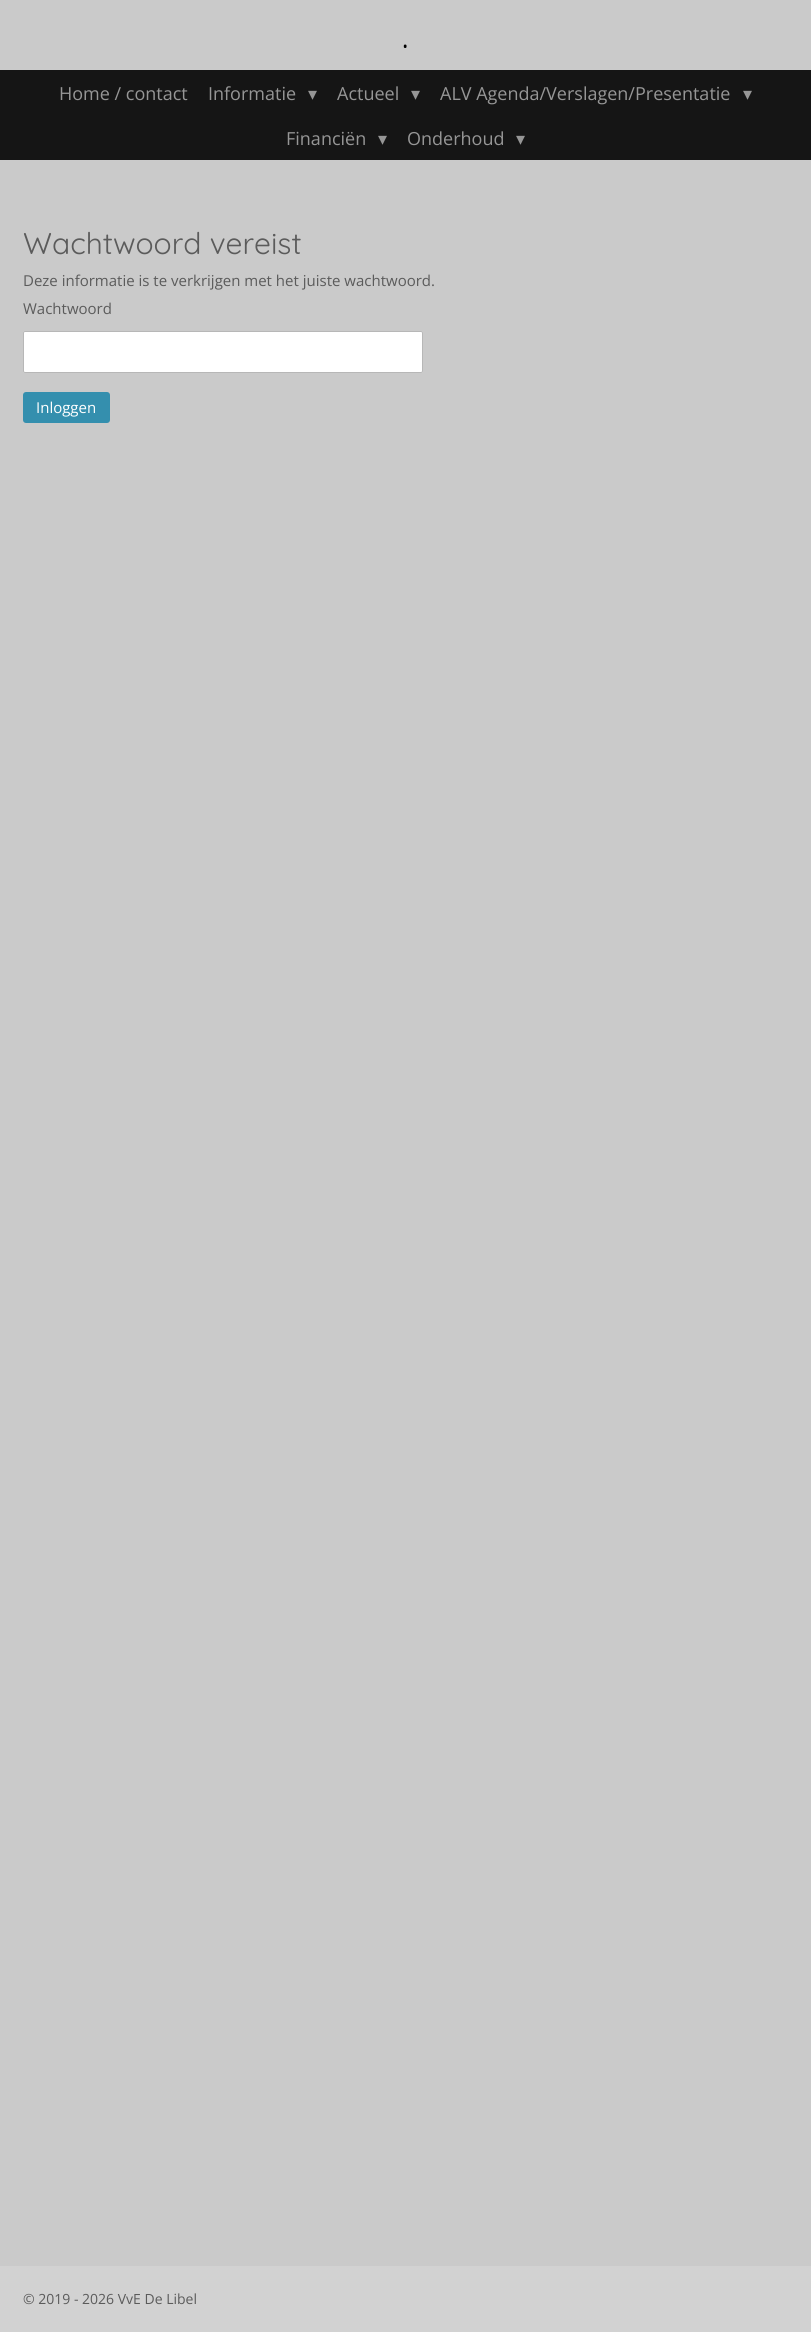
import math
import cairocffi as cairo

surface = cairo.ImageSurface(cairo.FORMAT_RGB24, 811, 2332)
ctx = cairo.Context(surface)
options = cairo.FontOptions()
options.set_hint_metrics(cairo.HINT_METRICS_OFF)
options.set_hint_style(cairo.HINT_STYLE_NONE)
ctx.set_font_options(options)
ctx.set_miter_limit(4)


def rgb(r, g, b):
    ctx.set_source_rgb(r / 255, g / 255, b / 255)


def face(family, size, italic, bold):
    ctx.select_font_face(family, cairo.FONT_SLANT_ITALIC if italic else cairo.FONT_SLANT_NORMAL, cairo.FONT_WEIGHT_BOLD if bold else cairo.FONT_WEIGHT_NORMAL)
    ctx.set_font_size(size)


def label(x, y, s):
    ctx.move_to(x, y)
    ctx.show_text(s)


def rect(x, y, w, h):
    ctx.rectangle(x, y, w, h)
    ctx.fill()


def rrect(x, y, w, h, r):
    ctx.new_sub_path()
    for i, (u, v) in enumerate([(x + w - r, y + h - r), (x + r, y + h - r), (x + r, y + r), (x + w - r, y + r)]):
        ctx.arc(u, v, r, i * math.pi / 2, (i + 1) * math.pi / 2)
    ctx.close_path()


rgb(202, 202, 202)
ctx.paint()
face('Quicksand', 35, 0, 0)
rgb(0, 0, 0)
label(402, 48, '.')
rgb(21, 21, 21)
rect(0, 70, 811, 90)
face('Open Sans', 18, 0, 0)
rgb(150, 150, 150)
label(59, 100, 'Home / contact')
label(208, 100, 'Informatie')
face('DejaVu Sans', 18, 0, 0)
label(308, 100, '▾')
face('Open Sans', 18, 0, 0)
label(337, 100, 'Actueel')
face('DejaVu Sans', 18, 0, 0)
label(411, 100, '▾')
face('Open Sans', 18, 0, 0)
label(440, 100, 'ALV Agenda/Verslagen/Presentatie')
face('DejaVu Sans', 18, 0, 0)
label(743, 100, '▾')
face('Open Sans', 18, 0, 0)
label(286, 145, 'Financiën')
face('DejaVu Sans', 18, 0, 0)
label(378, 145, '▾')
face('Open Sans', 18, 0, 0)
label(407, 145, 'Onderhoud')
face('DejaVu Sans', 18, 0, 0)
label(516, 145, '▾')
face('Quicksand', 30, 0, 0)
rgb(91, 91, 91)
label(23, 254, 'Wachtwoord vereist')
face('Open Sans', 15, 0, 0)
label(23, 286, 'Deze informatie is te verkrijgen met het juiste wachtwoord.')
label(23, 314, 'Wachtwoord')
rgb(255, 255, 255)
rrect(23, 331, 400, 42, 2)
ctx.fill()
rrect(23.5, 331.5, 399, 41, 1.5)
ctx.set_source_rgba(0.443, 0.443, 0.443, 0.5)
ctx.set_line_width(1)
ctx.stroke()
rgb(52, 143, 174)
rrect(23, 392, 87, 31, 3)
ctx.fill()
rgb(255, 255, 255)
label(36, 413, 'Inloggen')
rgb(210, 210, 210)
rect(0, 2266, 811, 66)
face('Open Sans', 14, 0, 0)
rgb(91, 91, 91)
label(23, 2304, '© 2019 - 2026 VvE De Libel')
surface.write_to_png('render.png')
